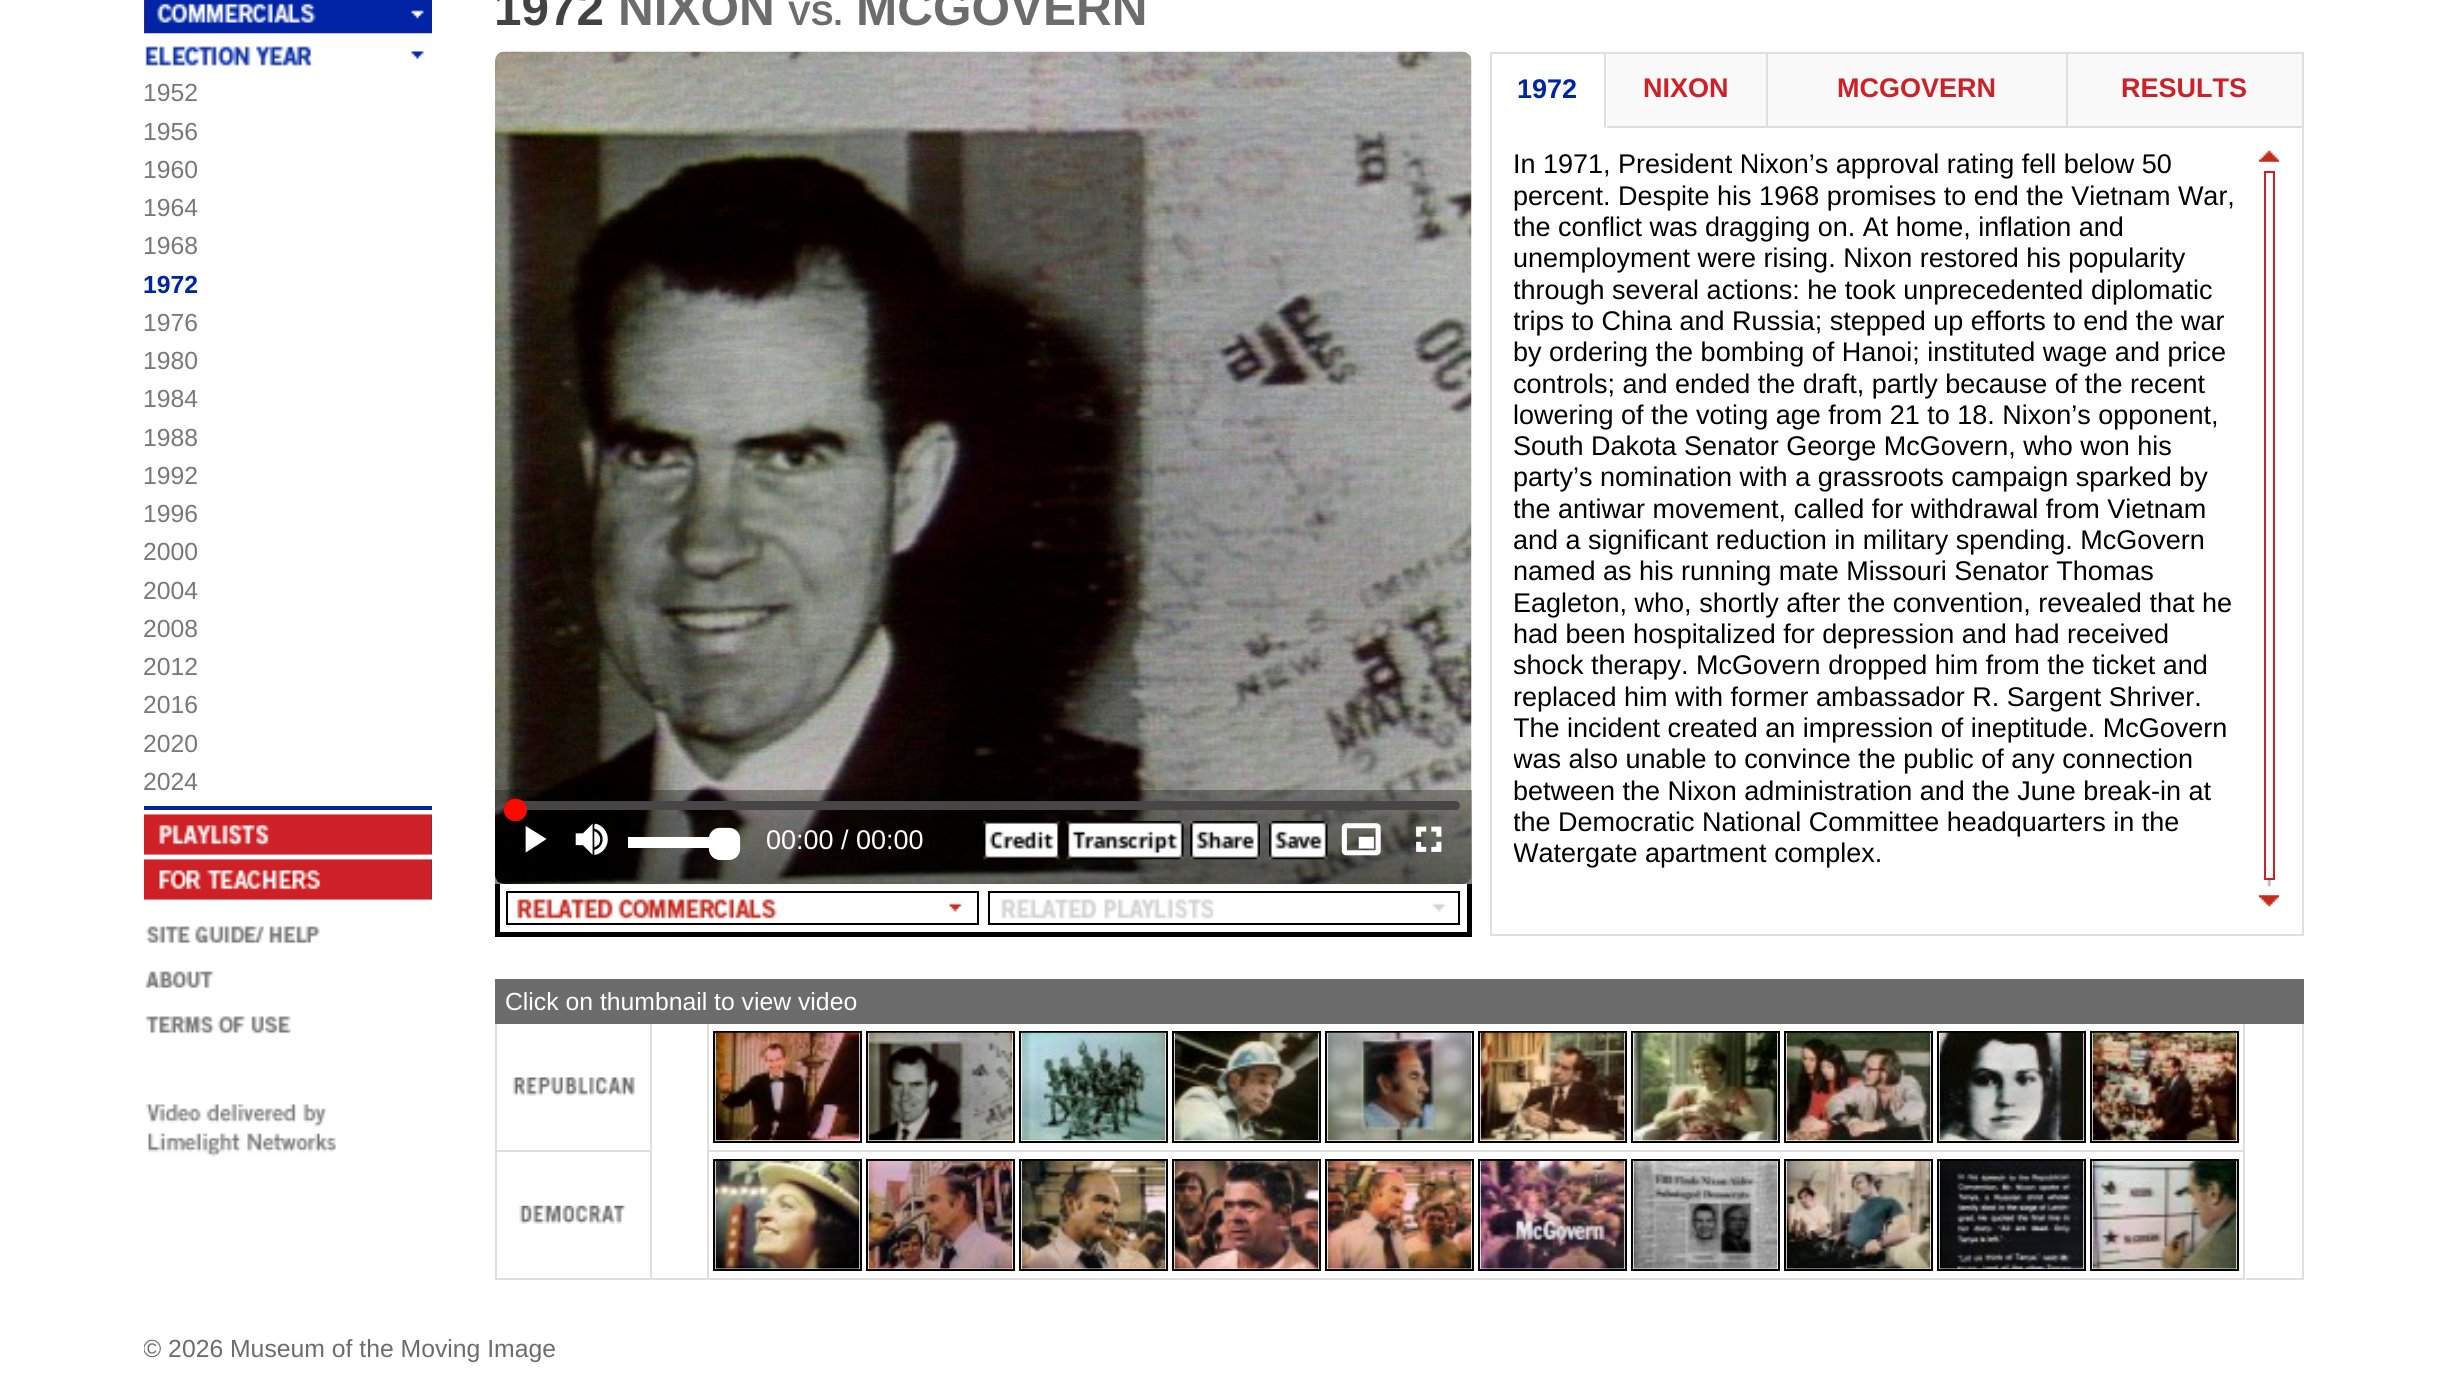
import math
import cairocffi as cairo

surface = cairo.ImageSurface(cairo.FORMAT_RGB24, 2445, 1378)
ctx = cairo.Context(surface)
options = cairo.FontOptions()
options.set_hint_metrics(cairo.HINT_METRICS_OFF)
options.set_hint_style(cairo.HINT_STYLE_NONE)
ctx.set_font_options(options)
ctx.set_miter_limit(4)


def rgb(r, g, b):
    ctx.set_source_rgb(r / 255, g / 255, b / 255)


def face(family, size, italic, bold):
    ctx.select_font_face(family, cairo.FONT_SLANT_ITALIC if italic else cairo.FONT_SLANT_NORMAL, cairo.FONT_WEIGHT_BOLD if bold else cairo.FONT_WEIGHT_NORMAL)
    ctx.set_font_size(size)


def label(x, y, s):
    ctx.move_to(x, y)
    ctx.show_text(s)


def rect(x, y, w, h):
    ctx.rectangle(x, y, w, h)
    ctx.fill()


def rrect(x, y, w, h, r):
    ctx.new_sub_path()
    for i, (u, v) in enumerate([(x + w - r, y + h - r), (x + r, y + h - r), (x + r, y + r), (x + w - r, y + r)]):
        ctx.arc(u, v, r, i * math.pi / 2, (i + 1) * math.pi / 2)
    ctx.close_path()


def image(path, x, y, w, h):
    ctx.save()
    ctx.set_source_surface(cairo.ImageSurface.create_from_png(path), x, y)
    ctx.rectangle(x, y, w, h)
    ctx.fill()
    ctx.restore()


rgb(255, 255, 255)
ctx.paint()
rgb(0, 36, 166)
rect(144, 806, 288, 4)
image('image0.png', 144, 0, 288, 34)
image('image1.png', 145, 46, 279, 20)
face('Liberation Sans', 24.75, 0, 0)
rgb(120, 120, 120)
label(143, 101, '1952')
label(143, 140, '1956')
label(143, 178, '1960')
label(143, 216, '1964')
label(143, 254, '1968')
face('Liberation Sans', 24.75, 0, 1)
rgb(0, 36, 166)
label(143, 293, '1972')
face('Liberation Sans', 24.75, 0, 0)
rgb(120, 120, 120)
label(143, 331, '1976')
label(143, 369, '1980')
label(143, 407, '1984')
label(143, 446, '1988')
label(143, 484, '1992')
label(143, 522, '1996')
label(143, 560, '2000')
label(143, 599, '2004')
label(143, 637, '2008')
label(143, 675, '2012')
label(143, 713, '2016')
label(143, 752, '2020')
label(143, 790, '2024')
image('image2.png', 144, 814, 288, 41)
image('image3.png', 144, 859, 288, 41)
image('image4.png', 145, 926, 175, 18)
image('image5.png', 145, 971, 70, 18)
image('image6.png', 145, 1016, 146, 18)
image('image7.png', 145, 1104, 191, 53)
face('Liberation Sans', 49.5, 0, 1)
rgb(66, 66, 66)
label(494, 25, '1972')
rgb(108, 108, 108)
label(618, 25, 'NIXON')
face('Liberation Sans', 34, 0, 1)
label(788, 25, 'VS.')
face('Liberation Sans', 49.5, 0, 1)
label(856, 25, 'MCGOVERN')
image('image8.png', 495, 51, 977, 833)
gradient = cairo.LinearGradient(983, 790, 983, 884)
gradient.add_color_stop_rgba(0, 0, 0, 0, 0.3)
gradient.add_color_stop_rgba(1, 0, 0, 0, 0.5)
ctx.set_source(gradient)
rect(495, 790, 977, 94)
rgb(71, 69, 69)
rrect(506, 801, 954, 9, 4.5)
ctx.fill()
rgb(254, 9, 0)
rrect(504, 799, 23, 22, 11)
ctx.fill()
rgb(255, 255, 255)
ctx.new_path()
ctx.move_to(526.5, 827.5)
ctx.line_to(545, 839)
ctx.line_to(526.5, 851)
ctx.close_path()
ctx.fill_preserve()
ctx.set_line_width(1.7)
ctx.stroke()
image('image9.png', 575, 823, 33, 32)
rect(628, 837, 112, 11)
rrect(709, 828, 31, 32, 11)
ctx.fill()
face('Liberation Sans', 27, 0, 0)
label(766, 849, '00:00 / 00:00')
image('image10.png', 983, 821, 77, 39)
image('image11.png', 1066, 821, 118, 39)
image('image12.png', 1190, 821, 70, 39)
image('image13.png', 1269, 821, 59, 39)
image('image14.png', 1341, 823, 40, 33)
image('image15.png', 1416, 826, 26, 26)
rgb(0, 0, 0)
rect(1467, 884, 5, 52)
rect(495, 932, 977, 5)
rect(495, 884, 5, 52)
ctx.rectangle(507, 892, 471, 32)
ctx.set_line_width(2)
ctx.stroke()
image('image16.png', 517, 899, 445, 20)
ctx.rectangle(989, 892, 470, 32)
ctx.stroke()
image('image17.png', 1001, 899, 444, 20)
ctx.rectangle(1491, 53, 812, 882)
rgb(223, 223, 223)
ctx.stroke()
rect(1604, 54, 2, 74)
face('Liberation Sans', 27, 0, 1)
rgb(0, 36, 166)
label(1517, 98, '1972')
rgb(249, 249, 249)
rect(1607, 54, 459, 72)
rgb(223, 223, 223)
rect(1766, 54, 2, 74)
rect(1607, 126, 162, 2)
rgb(206, 33, 39)
label(1643, 97, 'NIXON')
rgb(223, 223, 223)
rect(2066, 54, 2, 74)
rect(1769, 126, 533, 2)
rgb(206, 33, 39)
label(1837, 97, 'MCGOVERN')
rgb(249, 249, 249)
rect(2068, 54, 234, 72)
rgb(206, 33, 39)
label(2121, 97, 'RESULTS')
face('Liberation Sans', 27, 0, 0)
rgb(0, 0, 0)
label(1513, 173, 'In 1971, President Nixon’s approval rating fell below 50')
label(1513, 205, 'percent. Despite his 1968 promises to end the Vietnam War,')
ctx.save()
ctx.rectangle(1514, 151, 765, 756)
ctx.clip()
label(1513, 236, 'the conflict was dragging on. At home, inflation and')
ctx.restore()
label(1513, 267, 'unemployment were rising. Nixon restored his popularity')
ctx.save()
ctx.rectangle(1514, 151, 765, 756)
ctx.clip()
label(1513, 299, 'through several actions: he took unprecedented diplomatic')
label(1513, 330, 'trips to China and Russia; stepped up efforts to end the war')
ctx.restore()
label(1513, 361, 'by ordering the bombing of Hanoi; instituted wage and price')
label(1513, 393, 'controls; and ended the draft, partly because of the recent')
label(1513, 424, 'lowering of the voting age from 21 to 18. Nixon’s opponent,')
label(1513, 455, 'South Dakota Senator George McGovern, who won his')
label(1513, 486, 'party’s nomination with a grassroots campaign sparked by')
ctx.save()
ctx.rectangle(1514, 151, 765, 756)
ctx.clip()
label(1513, 518, 'the antiwar movement, called for withdrawal from Vietnam')
ctx.restore()
label(1513, 549, 'and a significant reduction in military spending. McGovern')
label(1513, 580, 'named as his running mate Missouri Senator Thomas')
label(1513, 612, 'Eagleton, who, shortly after the convention, revealed that he')
label(1513, 643, 'had been hospitalized for depression and had received')
label(1513, 674, 'shock therapy. McGovern dropped him from the ticket and')
label(1513, 706, 'replaced him with former ambassador R. Sargent Shriver.')
ctx.save()
ctx.rectangle(1514, 151, 765, 756)
ctx.clip()
label(1513, 737, 'The incident created an impression of ineptitude. McGovern')
label(1513, 768, 'was also unable to convince the public of any connection')
ctx.restore()
label(1513, 800, 'between the Nixon administration and the June break-in at')
ctx.save()
ctx.rectangle(1514, 151, 765, 756)
ctx.clip()
label(1513, 831, 'the Democratic National Committee headquarters in the')
label(1513, 862, 'Watergate apartment complex.')
ctx.restore()
image('image18.png', 2259, 150, 21, 12)
image('image19.png', 2267, 170, 4, 717)
rgb(255, 255, 255)
rect(2267, 173, 4, 705)
ctx.rectangle(2265, 172, 9, 707)
rgb(206, 33, 39)
ctx.stroke()
image('image20.png', 2259, 895, 21, 12)
rgb(108, 108, 108)
rect(495, 979, 1809, 45)
face('Liberation Sans', 24.75, 0, 0)
rgb(255, 255, 255)
label(505, 1010, 'Click on thumbnail to view video')
rgb(223, 223, 223)
rect(495, 1024, 2, 256)
rect(497, 1150, 153, 2)
image('image21.png', 512, 1077, 123, 19)
image('image22.png', 519, 1205, 107, 19)
rect(497, 1278, 210, 2)
rect(650, 1024, 2, 256)
rect(2243, 1024, 2, 256)
rect(707, 1024, 2, 256)
rect(709, 1150, 1534, 2)
ctx.rectangle(714, 1032, 147, 110)
rgb(0, 0, 0)
ctx.stroke()
image('image23.png', 715, 1032, 145, 109)
ctx.rectangle(867, 1032, 147, 110)
ctx.stroke()
image('image24.png', 868, 1032, 145, 109)
ctx.rectangle(1020, 1032, 147, 110)
ctx.stroke()
image('image25.png', 1021, 1032, 145, 109)
ctx.rectangle(1173, 1032, 147, 110)
ctx.stroke()
image('image26.png', 1174, 1032, 145, 109)
ctx.rectangle(1326, 1032, 147, 110)
ctx.stroke()
image('image27.png', 1327, 1032, 145, 109)
ctx.rectangle(1479, 1032, 147, 110)
ctx.stroke()
image('image28.png', 1480, 1032, 145, 109)
ctx.rectangle(1632, 1032, 147, 110)
ctx.stroke()
image('image29.png', 1633, 1032, 145, 109)
ctx.rectangle(1785, 1032, 147, 110)
ctx.stroke()
image('image30.png', 1786, 1032, 145, 109)
ctx.rectangle(1938, 1032, 147, 110)
ctx.stroke()
image('image31.png', 1939, 1032, 145, 109)
ctx.rectangle(2091, 1032, 147, 110)
ctx.stroke()
image('image32.png', 2092, 1032, 145, 109)
rgb(223, 223, 223)
rect(709, 1278, 1534, 2)
ctx.rectangle(714, 1160, 147, 110)
rgb(0, 0, 0)
ctx.stroke()
image('image33.png', 715, 1160, 145, 109)
ctx.rectangle(867, 1160, 147, 110)
ctx.stroke()
image('image34.png', 868, 1160, 145, 109)
ctx.rectangle(1020, 1160, 147, 110)
ctx.stroke()
image('image35.png', 1021, 1160, 145, 109)
ctx.rectangle(1173, 1160, 147, 110)
ctx.stroke()
image('image36.png', 1174, 1160, 145, 109)
ctx.rectangle(1326, 1160, 147, 110)
ctx.stroke()
image('image37.png', 1327, 1160, 145, 109)
ctx.rectangle(1479, 1160, 147, 110)
ctx.stroke()
image('image38.png', 1480, 1160, 145, 109)
ctx.rectangle(1632, 1160, 147, 110)
ctx.stroke()
image('image39.png', 1633, 1160, 145, 109)
ctx.rectangle(1785, 1160, 147, 110)
ctx.stroke()
image('image40.png', 1786, 1160, 145, 109)
ctx.rectangle(1938, 1160, 147, 110)
ctx.stroke()
image('image41.png', 1939, 1161, 145, 108)
ctx.rectangle(2091, 1160, 147, 110)
ctx.stroke()
image('image42.png', 2092, 1160, 145, 109)
rgb(223, 223, 223)
rect(2302, 1024, 2, 256)
rect(2246, 1278, 58, 2)
ctx.save()
ctx.rectangle(144, 0, 2160, 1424)
ctx.clip()
rgb(108, 108, 108)
label(143, 1357, '© 2026')
ctx.restore()
rgb(108, 108, 108)
label(230, 1357, 'Museum of the Moving Image')
surface.write_to_png('render.png')
